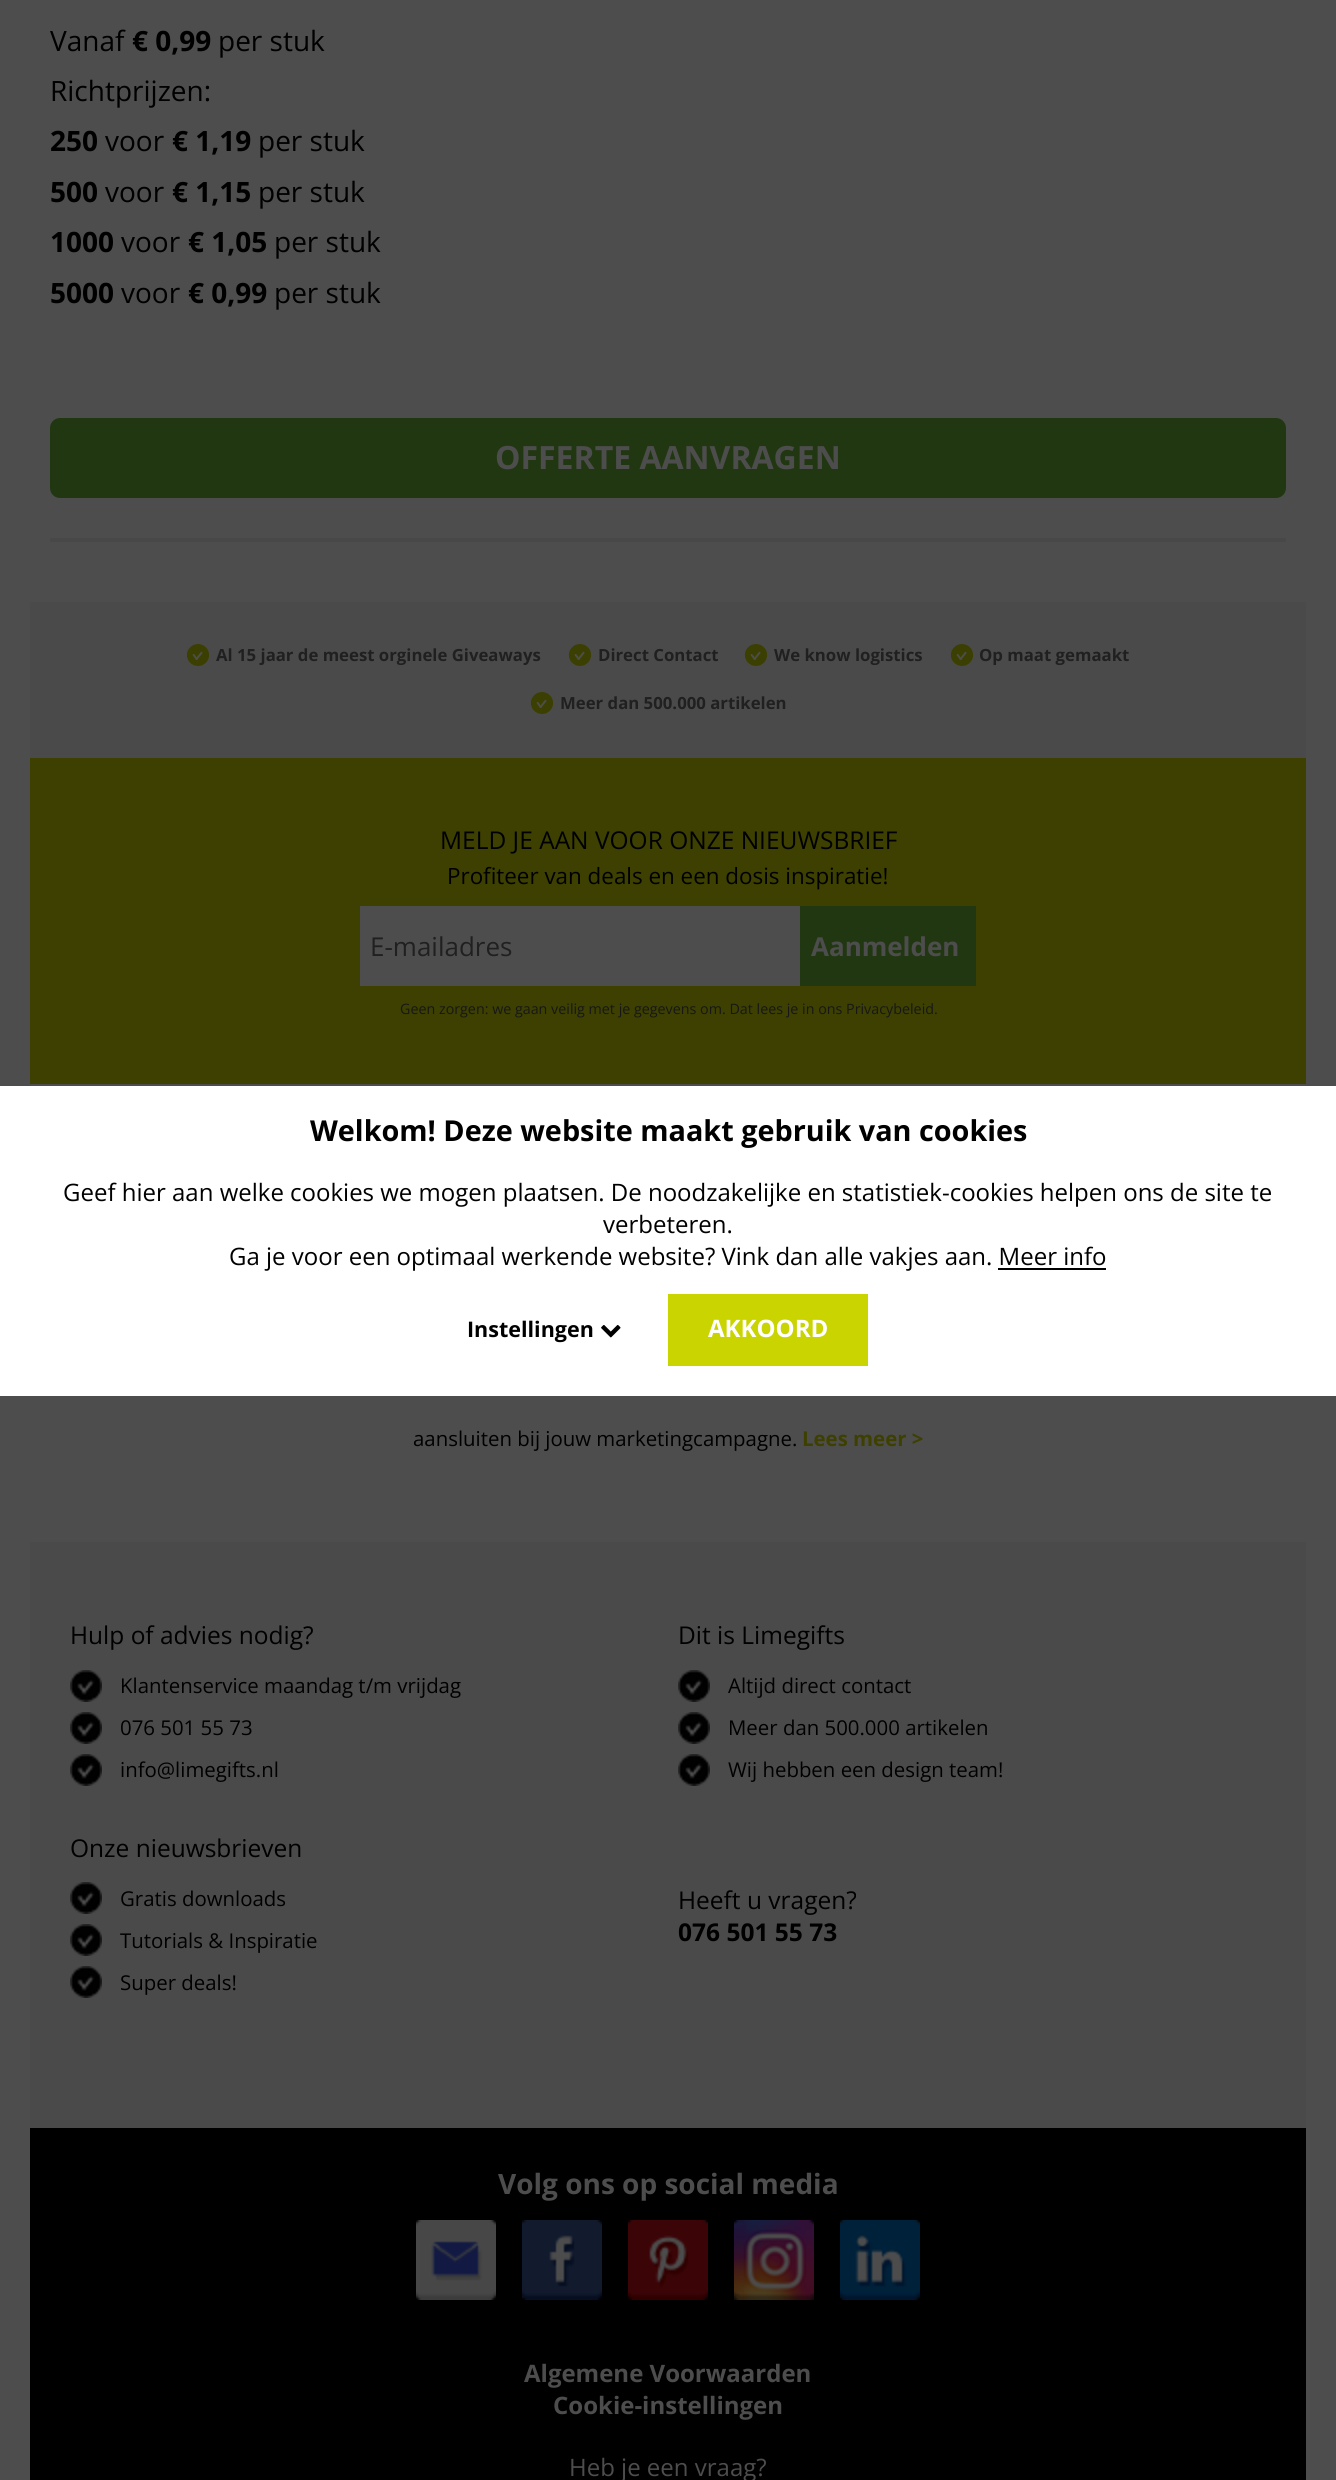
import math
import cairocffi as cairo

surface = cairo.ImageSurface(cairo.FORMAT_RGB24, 1336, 2480)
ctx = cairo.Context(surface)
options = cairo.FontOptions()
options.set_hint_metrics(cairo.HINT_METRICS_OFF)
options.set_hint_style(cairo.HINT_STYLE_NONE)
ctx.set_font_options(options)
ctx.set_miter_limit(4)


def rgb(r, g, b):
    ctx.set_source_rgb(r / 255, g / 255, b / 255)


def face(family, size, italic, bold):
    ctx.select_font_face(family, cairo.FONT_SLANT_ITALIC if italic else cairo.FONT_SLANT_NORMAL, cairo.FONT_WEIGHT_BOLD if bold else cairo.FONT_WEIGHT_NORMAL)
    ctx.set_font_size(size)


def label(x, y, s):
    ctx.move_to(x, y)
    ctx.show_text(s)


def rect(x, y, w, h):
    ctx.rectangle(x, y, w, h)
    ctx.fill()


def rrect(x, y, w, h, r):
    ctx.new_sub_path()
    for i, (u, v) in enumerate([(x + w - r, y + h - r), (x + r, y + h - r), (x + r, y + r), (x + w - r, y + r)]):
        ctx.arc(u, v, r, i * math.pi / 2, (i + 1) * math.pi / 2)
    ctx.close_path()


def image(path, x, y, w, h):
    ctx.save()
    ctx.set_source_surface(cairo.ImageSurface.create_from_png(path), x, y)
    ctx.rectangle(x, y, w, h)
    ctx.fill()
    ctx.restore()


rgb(77, 77, 77)
ctx.paint()
face('Open Sans', 28, 0, 0)
rgb(0, 0, 0)
label(50, 51, 'Vanaf')
face('Open Sans', 28, 0, 1)
label(132, 51, '€ 0,99')
face('Open Sans', 28, 0, 0)
label(218, 51, 'per stuk')
label(50, 101, 'Richtprijzen:')
face('Open Sans', 28, 0, 1)
label(50, 151, '250')
face('Open Sans', 28, 0, 0)
label(105, 151, 'voor')
face('Open Sans', 28, 0, 1)
label(172, 151, '€ 1,19')
face('Open Sans', 28, 0, 0)
label(258, 151, 'per stuk')
face('Open Sans', 28, 0, 1)
label(50, 202, '500')
face('Open Sans', 28, 0, 0)
label(105, 202, 'voor')
face('Open Sans', 28, 0, 1)
label(172, 202, '€ 1,15')
face('Open Sans', 28, 0, 0)
label(258, 202, 'per stuk')
face('Open Sans', 28, 0, 1)
label(50, 252, '1000')
face('Open Sans', 28, 0, 0)
label(121, 252, 'voor')
face('Open Sans', 28, 0, 1)
label(188, 252, '€ 1,05')
face('Open Sans', 28, 0, 0)
label(274, 252, 'per stuk')
face('Open Sans', 28, 0, 1)
label(50, 303, '5000')
face('Open Sans', 28, 0, 0)
label(121, 303, 'voor')
face('Open Sans', 28, 0, 1)
label(188, 303, '€ 0,99')
face('Open Sans', 28, 0, 0)
label(274, 303, 'per stuk')
rgb(33, 55, 17)
rrect(50, 418, 1236, 80, 10)
ctx.fill()
face('Open Sans', 32, 0, 1)
rgb(77, 77, 77)
label(495, 469, 'OFFERTE AANVRAGEN')
rgb(72, 72, 72)
rect(50, 538, 1236, 4)
rgb(75, 74, 74)
rect(30, 602, 1276, 156)
image('image0.png', 186, 644, 24, 22)
face('Open Sans', 16.75, 0, 1)
rgb(32, 32, 32)
label(216, 661, 'Al 15 jaar de meest orginele Giveaways')
image('image0.png', 568, 644, 24, 22)
label(598, 661, 'Direct Contact')
image('image0.png', 744, 644, 24, 22)
label(774, 661, 'We know logistics')
image('image0.png', 950, 644, 24, 22)
label(979, 661, 'Op maat gemaakt')
image('image0.png', 530, 692, 24, 22)
label(560, 709, 'Meer dan 500.000 artikelen')
rgb(61, 64, 0)
rect(30, 758, 1276, 326)
face('Open Sans', 24.5, 0, 0)
rgb(0, 0, 0)
label(440, 849, 'MELD JE AAN VOOR ONZE NIEUWSBRIEF')
face('Open Sans', 22.4, 0, 0)
label(447, 884, 'Profiteer van deals en een dosis inspiratie!')
rgb(77, 77, 77)
rect(360, 906, 440, 80)
face('Open Sans', 26, 0, 0)
rgb(32, 32, 32)
label(370, 956, 'E-mailadres')
rgb(33, 55, 17)
rect(800, 906, 176, 80)
face('Open Sans', 26, 0, 1)
rgb(77, 77, 77)
label(811, 956, 'Aanmelden')
face('Open Sans', 14.3, 0, 0)
rgb(23, 23, 23)
label(400, 1014, 'Geen zorgen: we gaan veilig met je gegevens om. Dat lees je in ons Privacybeleid.')
face('Open Sans', 20.4, 0, 0)
rgb(0, 0, 0)
label(413, 1446, 'aansluiten bij jouw marketingcampagne.')
face('Open Sans', 20.4, 0, 1)
rgb(61, 64, 0)
label(802, 1446, 'Lees meer >')
rgb(75, 74, 74)
rect(30, 1542, 1276, 586)
face('Open Sans', 24.5, 0, 0)
rgb(0, 0, 0)
label(70, 1644, 'Hulp of advies nodig?')
image('image1.png', 70, 1670, 32, 32)
face('Open Sans', 20.4, 0, 0)
label(120, 1693, 'Klantenservice maandag t/m vrijdag')
image('image1.png', 70, 1712, 32, 32)
label(120, 1735, '076 501 55 73')
image('image1.png', 70, 1754, 32, 32)
label(120, 1777, 'info@limegifts.nl')
face('Open Sans', 24.5, 0, 0)
label(678, 1644, 'Dit is Limegifts')
image('image1.png', 678, 1670, 32, 32)
face('Open Sans', 20.4, 0, 0)
label(728, 1693, 'Altijd direct contact')
image('image1.png', 678, 1712, 32, 32)
label(728, 1735, 'Meer dan 500.000 artikelen')
image('image1.png', 678, 1754, 32, 32)
label(728, 1777, 'Wij hebben een design team!')
face('Open Sans', 24.5, 0, 0)
label(70, 1857, 'Onze nieuwsbrieven')
image('image1.png', 70, 1882, 32, 32)
face('Open Sans', 20.4, 0, 0)
label(120, 1906, 'Gratis downloads')
image('image1.png', 70, 1924, 32, 32)
label(120, 1948, 'Tutorials & Inspiratie')
image('image1.png', 70, 1966, 32, 32)
label(120, 1990, 'Super deals!')
face('Open Sans', 24.5, 0, 0)
label(678, 1909, 'Heeft u vragen?')
face('Open Sans', 24.5, 0, 1)
label(678, 1941, '076 501 55 73')
rect(30, 2128, 1276, 352)
face('Open Sans', 28, 0, 1)
rgb(77, 77, 77)
label(498, 2194, 'Volg ons op social media')
image('image2.png', 416, 2220, 80, 80)
image('image3.png', 522, 2220, 80, 80)
image('image4.png', 628, 2220, 80, 80)
image('image5.png', 734, 2220, 80, 80)
image('image6.png', 840, 2220, 80, 80)
face('Open Sans', 24, 0, 1)
label(524, 2382, 'Algemene Voorwaarden')
label(553, 2414, 'Cookie-instellingen')
face('Open Sans', 24, 0, 0)
label(569, 2476, 'Heb je een vraag?')
rgb(255, 255, 255)
rect(0, 1086, 1336, 310)
face('Open Sans', 28.8, 0, 1)
rgb(0, 0, 0)
label(310, 1141, 'Welkom! Deze website maakt gebruik van cookies')
face('Open Sans', 24, 0, 0)
label(63, 1201, 'Geef hier aan welke cookies we mogen plaatsen. De noodzakelijke en statistiek-cookies helpen ons de site te')
label(603, 1233, 'verbeteren.')
label(229, 1265, 'Ga je voor een optimaal werkende website? Vink dan alle vakjes aan. Meer info')
rect(998, 1268, 108, 2)
face('Open Sans', 21.5, 0, 1)
label(467, 1337, 'Instellingen')
image('image7.png', 601, 1325, 20, 13)
rgb(202, 212, 0)
rect(668, 1294, 200, 72)
face('Open Sans', 24, 0, 1)
rgb(255, 255, 255)
label(708, 1337, 'AKKOORD')
surface.write_to_png('render.png')
